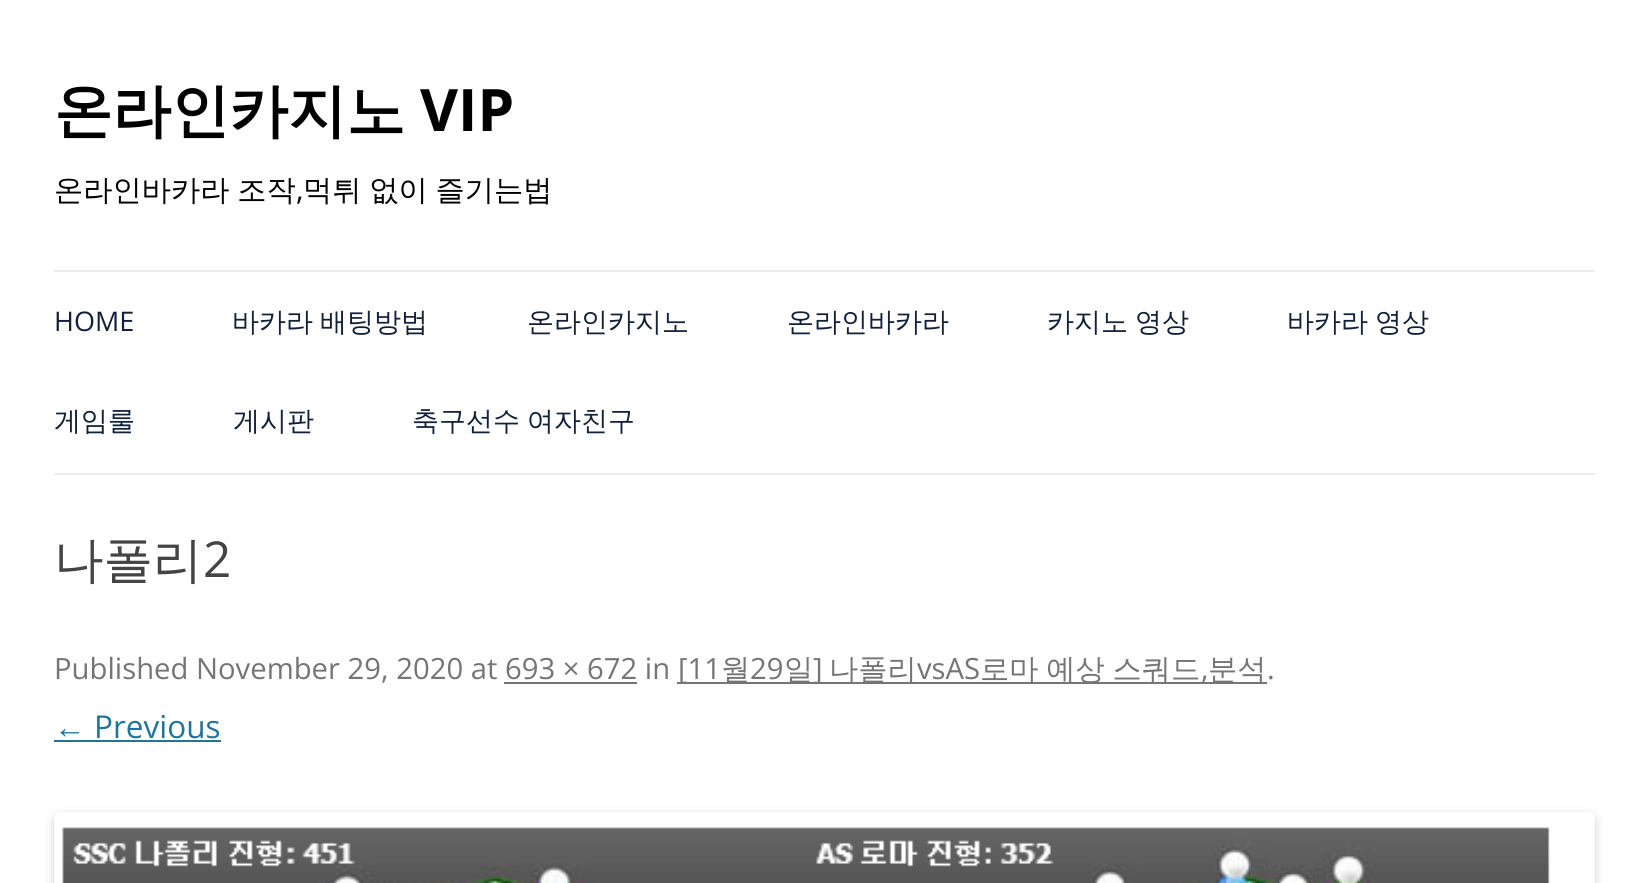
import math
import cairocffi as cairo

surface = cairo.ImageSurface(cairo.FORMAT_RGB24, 1648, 883)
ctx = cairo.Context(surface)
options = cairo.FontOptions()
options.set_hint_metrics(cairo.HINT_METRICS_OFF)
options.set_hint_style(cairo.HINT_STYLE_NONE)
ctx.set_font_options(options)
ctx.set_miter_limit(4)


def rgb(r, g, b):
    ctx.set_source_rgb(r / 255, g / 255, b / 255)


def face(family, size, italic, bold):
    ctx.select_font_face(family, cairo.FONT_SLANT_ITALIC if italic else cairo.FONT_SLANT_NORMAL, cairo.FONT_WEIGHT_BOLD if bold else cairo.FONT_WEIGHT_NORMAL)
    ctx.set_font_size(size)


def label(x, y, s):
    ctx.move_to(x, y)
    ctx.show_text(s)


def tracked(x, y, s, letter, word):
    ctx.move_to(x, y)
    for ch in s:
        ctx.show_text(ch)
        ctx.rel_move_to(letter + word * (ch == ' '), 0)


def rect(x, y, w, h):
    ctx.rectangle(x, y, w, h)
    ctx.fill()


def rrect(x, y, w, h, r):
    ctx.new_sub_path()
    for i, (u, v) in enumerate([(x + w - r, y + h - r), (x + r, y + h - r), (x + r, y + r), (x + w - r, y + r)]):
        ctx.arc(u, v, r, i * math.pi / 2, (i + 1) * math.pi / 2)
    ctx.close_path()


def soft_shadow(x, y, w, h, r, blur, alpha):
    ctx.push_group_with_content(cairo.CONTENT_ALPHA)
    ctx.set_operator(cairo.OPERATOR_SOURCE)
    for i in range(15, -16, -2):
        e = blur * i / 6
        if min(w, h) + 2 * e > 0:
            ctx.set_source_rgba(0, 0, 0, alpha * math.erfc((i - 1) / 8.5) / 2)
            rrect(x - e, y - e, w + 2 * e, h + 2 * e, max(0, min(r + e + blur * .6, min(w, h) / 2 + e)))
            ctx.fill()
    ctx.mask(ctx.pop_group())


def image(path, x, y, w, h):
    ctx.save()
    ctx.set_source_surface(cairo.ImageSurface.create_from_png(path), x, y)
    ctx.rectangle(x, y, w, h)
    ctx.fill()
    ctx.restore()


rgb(255, 255, 255)
ctx.paint()
face('WenQuanYi Zen Hei', 58.5, 0, 1)
rgb(0, 0, 0)
label(54, 131, '온라인카지노')
face('Open Sans', 58.5, 0, 1)
label(420, 131, 'VIP')
face('WenQuanYi Zen Hei Medium', 29.25, 0, 0)
tracked(54, 200, '온라인바카라 조작', 0, -1)
face('Open Sans', 29.25, 0, 0)
label(296, 200, ',')
face('WenQuanYi Zen Hei Medium', 29.25, 0, 0)
tracked(303, 200, '먹튀 없이 즐기는법', 0, -1)
rgb(237, 237, 237)
rect(54, 270, 1541, 2)
rect(54, 473, 1541, 2)
face('Open Sans', 27, 0, 0)
rgb(19, 32, 58)
label(54, 331, 'HOME')
face('WenQuanYi Zen Hei Medium', 27, 0, 0)
tracked(232, 331, '바카라 배팅방법', 0, -1)
label(527, 331, '온라인카지노')
label(787, 331, '온라인바카라')
tracked(1047, 331, '카지노 영상', 0, -1)
tracked(1287, 331, '바카라 영상', 0, -1)
label(54, 430, '게임룰')
label(233, 430, '게시판')
tracked(412, 430, '축구선수 여자친구', 0, -1)
face('WenQuanYi Zen Hei Medium', 49.5, 0, 0)
rgb(68, 68, 68)
label(54, 577, '나폴리')
face('Open Sans', 49.5, 0, 0)
label(203, 577, '2')
face('Open Sans', 29.25, 0, 0)
rgb(117, 117, 117)
label(54, 679, 'Published November 29, 2020 at 693 × 672 in')
rect(677, 682, 590, 2)
label(678, 679, '[11')
face('WenQuanYi Zen Hei Medium', 29.25, 0, 0)
label(721, 679, '월')
face('Open Sans', 29.25, 0, 0)
label(750, 679, '29')
face('WenQuanYi Zen Hei Medium', 29.25, 0, 0)
label(784, 679, '일')
face('Open Sans', 29.25, 0, 0)
label(813, 679, ']')
face('WenQuanYi Zen Hei Medium', 29.25, 0, 0)
label(829, 679, '나폴리')
face('Open Sans', 29.25, 0, 0)
label(917, 679, 'vsAS')
face('WenQuanYi Zen Hei Medium', 29.25, 0, 0)
tracked(980, 679, '로마 예상 스쿼드', 0, -1)
face('Open Sans', 29.25, 0, 0)
label(1201, 679, ',')
face('WenQuanYi Zen Hei Medium', 29.25, 0, 0)
label(1208, 679, '분석')
face('Open Sans', 29.25, 0, 0)
label(1267, 679, '.')
rect(504, 682, 133, 2)
face('Liberation Sans', 31.5, 0, 0)
rgb(33, 117, 155)
label(54, 738, '←')
rect(54, 740, 167, 2)
face('Open Sans', 31.5, 0, 0)
label(94, 738, 'Previous')
ctx.save()
ctx.set_fill_rule(cairo.FILL_RULE_EVEN_ODD)
ctx.new_path()
ctx.move_to(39, 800)
ctx.line_to(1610, 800)
ctx.line_to(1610, 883)
ctx.line_to(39, 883)
ctx.close_path()
ctx.move_to(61, 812)
ctx.line_to(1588, 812)
ctx.curve_to(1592, 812, 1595, 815, 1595, 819)
ctx.line_to(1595, 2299)
ctx.curve_to(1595, 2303, 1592, 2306, 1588, 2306)
ctx.line_to(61, 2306)
ctx.curve_to(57, 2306, 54, 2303, 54, 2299)
ctx.line_to(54, 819)
ctx.curve_to(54, 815, 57, 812, 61, 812)
ctx.close_path()
ctx.clip()
rgb(0, 0, 0)
soft_shadow(54, 815, 1541, 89, 7, 4.5, 0.2)
ctx.restore()
image('image0.png', 62, 827, 1488, 56)
surface.write_to_png('render.png')
